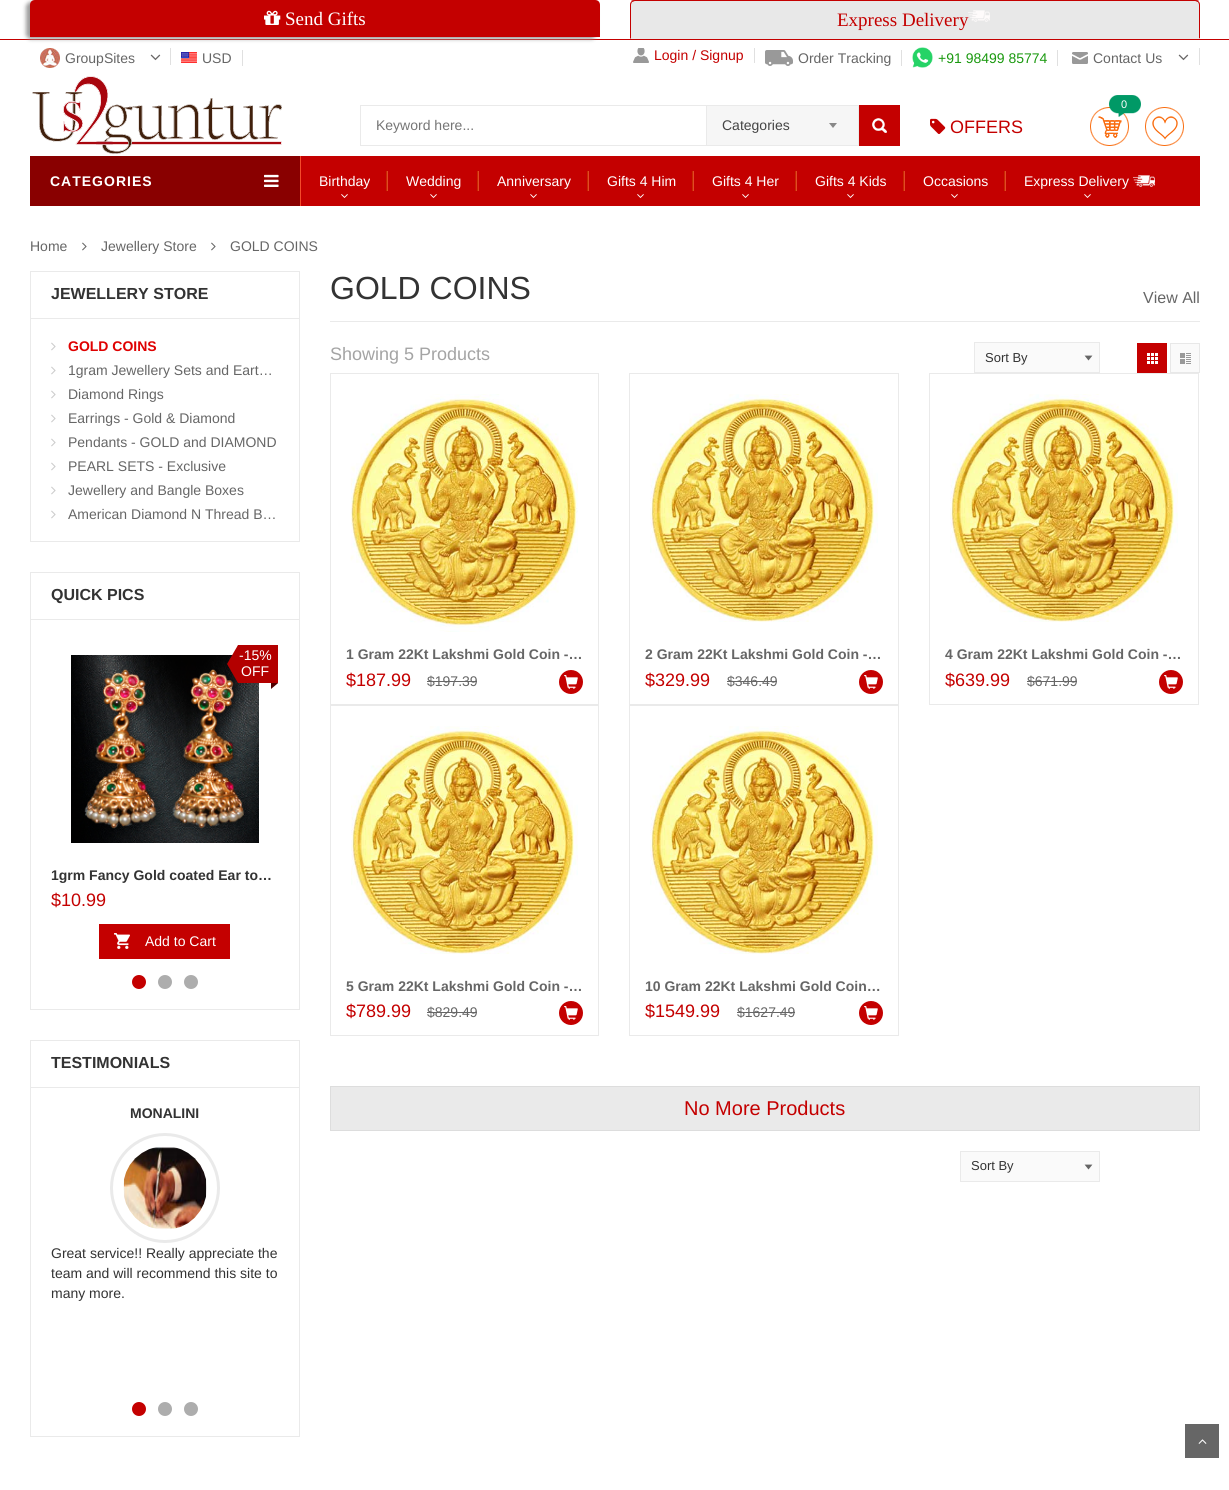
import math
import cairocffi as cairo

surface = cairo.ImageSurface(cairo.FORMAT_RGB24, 1229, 1490)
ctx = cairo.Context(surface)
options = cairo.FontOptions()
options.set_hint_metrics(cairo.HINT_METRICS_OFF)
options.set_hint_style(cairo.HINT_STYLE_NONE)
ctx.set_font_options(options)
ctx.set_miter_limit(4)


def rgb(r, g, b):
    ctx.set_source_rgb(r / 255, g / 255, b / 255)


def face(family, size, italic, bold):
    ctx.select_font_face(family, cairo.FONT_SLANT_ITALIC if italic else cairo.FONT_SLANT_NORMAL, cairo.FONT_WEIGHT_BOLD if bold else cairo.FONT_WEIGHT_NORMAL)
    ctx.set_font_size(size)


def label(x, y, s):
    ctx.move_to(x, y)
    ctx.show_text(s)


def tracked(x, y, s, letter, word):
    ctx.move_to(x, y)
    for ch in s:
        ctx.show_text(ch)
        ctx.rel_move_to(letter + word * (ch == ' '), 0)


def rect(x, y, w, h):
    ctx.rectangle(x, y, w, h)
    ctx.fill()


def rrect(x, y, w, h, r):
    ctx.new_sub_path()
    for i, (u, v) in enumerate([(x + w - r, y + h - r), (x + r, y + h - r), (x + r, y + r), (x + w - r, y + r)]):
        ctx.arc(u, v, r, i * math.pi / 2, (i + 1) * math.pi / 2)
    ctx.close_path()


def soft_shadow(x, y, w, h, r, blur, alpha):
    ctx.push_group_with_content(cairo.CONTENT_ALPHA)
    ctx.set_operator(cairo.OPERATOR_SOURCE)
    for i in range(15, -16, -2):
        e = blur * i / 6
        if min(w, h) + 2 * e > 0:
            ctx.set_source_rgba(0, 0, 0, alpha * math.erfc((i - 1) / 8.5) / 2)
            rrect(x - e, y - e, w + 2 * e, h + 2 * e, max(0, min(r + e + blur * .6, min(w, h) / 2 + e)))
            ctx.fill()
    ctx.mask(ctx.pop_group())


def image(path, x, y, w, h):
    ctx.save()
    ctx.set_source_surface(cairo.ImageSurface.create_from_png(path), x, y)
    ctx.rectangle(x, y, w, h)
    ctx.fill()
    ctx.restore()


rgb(255, 255, 255)
ctx.paint()
rgb(196, 0, 0)
rect(0, 39, 1229, 1)
rgb(156, 156, 156)
soft_shadow(26, 2, 570, 37, 5, 2, 1)
rgb(196, 0, 0)
ctx.new_path()
ctx.move_to(35, 0)
ctx.line_to(595, 0)
ctx.curve_to(598, 0, 600, 2, 600, 5)
ctx.line_to(600, 37)
ctx.line_to(30, 37)
ctx.line_to(30, 5)
ctx.curve_to(30, 2, 32, 0, 35, 0)
ctx.close_path()
ctx.fill()
image('image0.png', 264, 10, 17, 15)
face('Liberation Serif', 19, 0, 0)
rgb(255, 255, 255)
label(285, 25, 'Send Gifts')
rgb(232, 232, 232)
ctx.new_path()
ctx.move_to(635, 0)
ctx.line_to(1195, 0)
ctx.curve_to(1198, 0, 1200, 2, 1200, 5)
ctx.line_to(1200, 39)
ctx.line_to(630, 39)
ctx.line_to(630, 5)
ctx.curve_to(630, 2, 632, 0, 635, 0)
ctx.close_path()
ctx.fill()
rgb(196, 0, 0)
ctx.new_path()
ctx.move_to(635, 0)
ctx.curve_to(634, 0, 632, 0, 631, 1)
ctx.line_to(632, 2)
ctx.curve_to(633, 2, 634, 1, 635, 1)
ctx.line_to(1195, 1)
ctx.curve_to(1196, 1, 1197, 2, 1198, 2)
ctx.line_to(1199, 1)
ctx.curve_to(1198, 0, 1196, 0, 1195, 0)
ctx.close_path()
ctx.fill()
ctx.new_path()
ctx.move_to(1200, 39)
ctx.line_to(1200, 5)
ctx.curve_to(1200, 3.5, 1199.5, 2, 1198.5, 1.5)
ctx.line_to(1198, 2)
ctx.curve_to(1198.5, 3, 1199, 4, 1199, 5)
ctx.line_to(1199, 38)
ctx.close_path()
ctx.fill()
rgb(232, 232, 232)
ctx.new_path()
ctx.move_to(1200, 39)
ctx.line_to(1199, 38)
ctx.line_to(631, 38)
ctx.line_to(630, 39)
ctx.close_path()
ctx.fill()
rgb(196, 0, 0)
ctx.new_path()
ctx.move_to(630, 39)
ctx.line_to(631, 38)
ctx.line_to(631, 5)
ctx.curve_to(631, 4, 631.5, 3, 632, 2)
ctx.line_to(631.5, 1.5)
ctx.curve_to(630.5, 2, 630, 3.5, 630, 5)
ctx.close_path()
ctx.fill()
label(837, 26, 'Express Delivery')
image('image1.png', 968, 10, 22, 12)
rgb(224, 224, 224)
rect(170, 48, 1, 17)
image('image2.png', 40, 48, 20, 20)
face('Liberation Sans', 14, 0, 0)
rgb(102, 102, 102)
label(65, 63, 'GroupSites')
image('image3.png', 150, 54, 11, 7)
rgb(224, 224, 224)
rect(242, 50, 1, 16)
image('image4.png', 181, 52, 16, 11)
rgb(102, 102, 102)
label(202, 63, 'USD')
rgb(224, 224, 224)
rect(754, 48, 1, 15)
image('image5.png', 633, 48, 16, 15)
rgb(196, 0, 0)
label(654, 60, 'Login / Signup')
rgb(224, 224, 224)
rect(901, 50, 1, 16)
image('image6.png', 765, 50, 28, 16)
rgb(102, 102, 102)
label(798, 63, 'Order Tracking')
rgb(224, 224, 224)
rect(1057, 50, 1, 16)
image('image7.png', 912, 47, 21, 21)
rgb(26, 153, 15)
label(938, 63, '+91 98499 85774')
rgb(224, 224, 224)
rect(1199, 48, 1, 17)
image('image8.png', 1072, 52, 16, 12)
rgb(102, 102, 102)
label(1093, 63, 'Contact Us')
image('image3.png', 1178, 54, 11, 7)
image('image9.png', 32, 76, 250, 78)
ctx.rectangle(360.5, 105.5, 539, 40)
rgb(234, 234, 234)
ctx.set_line_width(1)
ctx.stroke()
rgb(117, 117, 117)
label(376, 130, 'Keyword here...')
rgb(246, 246, 246)
rect(707, 106, 151, 39)
rgb(234, 234, 234)
rect(706, 106, 1, 39)
rect(858, 106, 1, 40)
rgb(68, 68, 68)
label(722, 130, 'Categories')
rgb(136, 136, 136)
ctx.new_path()
ctx.move_to(829, 123)
ctx.line_to(837, 123)
ctx.line_to(833, 128)
ctx.close_path()
ctx.fill()
rgb(196, 0, 0)
rect(859, 105, 41, 41)
image('image10.png', 872, 118, 15, 15)
image('image11.png', 1090, 107, 39, 39)
image('image12.png', 1109, 95, 32, 22)
face('Liberation Sans', 11, 0, 0)
rgb(255, 255, 255)
label(1121, 108, '0')
image('image13.png', 930, 118, 16, 16)
face('Liberation Sans', 18, 0, 0)
rgb(196, 0, 0)
label(950, 133, 'OFFERS')
image('image14.png', 1145, 107, 39, 39)
rgb(137, 0, 0)
rect(30, 156, 270, 50)
face('Liberation Sans', 14, 0, 1)
rgb(255, 255, 255)
tracked(50, 186, 'CATEGORIES', 1, 0)
image('image15.png', 264, 174, 15, 13)
rgb(196, 0, 0)
rect(301, 156, 899, 50)
rgb(244, 74, 42)
rect(300, 156, 1, 50)
image('image16.png', 386, 171, 2, 20)
face('Liberation Sans', 14, 0, 0)
rgb(255, 255, 255)
label(319, 186, 'Birthday')
image('image17.png', 341, 194, 7, 4)
image('image16.png', 477, 171, 2, 20)
label(406, 186, 'Wedding')
image('image17.png', 430, 194, 7, 4)
image('image16.png', 587, 171, 2, 20)
label(497, 186, 'Anniversary')
image('image17.png', 530, 194, 7, 4)
image('image16.png', 692, 171, 2, 20)
label(607, 186, 'Gifts 4 Him')
image('image17.png', 637, 194, 7, 4)
image('image16.png', 795, 171, 2, 20)
label(712, 186, 'Gifts 4 Her')
image('image17.png', 742, 194, 7, 4)
image('image16.png', 903, 171, 2, 20)
label(815, 186, 'Gifts 4 Kids')
image('image17.png', 847, 194, 7, 4)
image('image16.png', 1004, 171, 2, 20)
label(923, 186, 'Occasions')
image('image17.png', 951, 194, 7, 4)
label(1024, 186, 'Express Delivery')
image('image18.png', 1133, 175, 22, 12)
image('image17.png', 1084, 194, 7, 4)
rgb(102, 102, 102)
label(30, 251, 'Home')
image('image19.png', 82, 242, 5, 9)
label(101, 251, 'Jewellery Store')
image('image19.png', 211, 242, 5, 9)
label(230, 251, 'GOLD COINS')
ctx.rectangle(30.5, 271.5, 269, 270)
rgb(234, 234, 234)
ctx.stroke()
rect(31, 318, 268, 1)
face('Liberation Sans', 16, 0, 1)
rgb(51, 51, 51)
label(51, 299, 'JEWELLERY STORE')
image('image20.png', 51, 342, 5, 9)
face('Liberation Sans', 14, 0, 1)
rgb(223, 1, 1)
label(68, 351, 'GOLD COINS')
image('image20.png', 51, 366, 5, 9)
face('Liberation Sans', 14, 0, 0)
rgb(102, 102, 102)
label(68, 375, '1gram Jewellery Sets and Eart…')
image('image20.png', 51, 390, 5, 9)
label(68, 399, 'Diamond Rings')
image('image20.png', 51, 414, 5, 9)
label(68, 423, 'Earrings - Gold & Diamond')
image('image20.png', 51, 438, 5, 9)
label(68, 447, 'Pendants - GOLD and DIAMOND')
image('image20.png', 51, 462, 5, 9)
label(68, 471, 'PEARL SETS - Exclusive')
image('image20.png', 51, 486, 5, 9)
label(68, 495, 'Jewellery and Bangle Boxes')
image('image20.png', 51, 510, 5, 9)
label(68, 519, 'American Diamond N Thread B…')
ctx.rectangle(30.5, 572.5, 269, 437)
rgb(234, 234, 234)
ctx.stroke()
rect(31, 619, 268, 1)
face('Liberation Sans', 16, 0, 1)
rgb(51, 51, 51)
label(51, 600, 'QUICK PICS')
image('image22.png', 71, 655, 188, 188)
image('image21.png', 227, 645, 51, 44)
face('Liberation Sans', 14, 0, 0)
rgb(255, 255, 255)
label(239, 660, '-15%')
label(241, 676, 'OFF')
face('Liberation Sans', 14, 0, 1)
rgb(51, 51, 51)
label(51, 880, '1grm Fancy Gold coated Ear to…')
face('Liberation Sans', 18, 0, 0)
rgb(196, 0, 0)
label(51, 906, '$10.99')
rect(99, 924, 131, 35)
image('image23.png', 114, 933, 16, 16)
face('Liberation Sans', 14, 0, 0)
rgb(255, 255, 255)
label(145, 946, 'Add to Cart')
rgb(196, 0, 0)
ctx.new_path()
ctx.arc(139, 982, 7, 0, 2 * math.pi)
ctx.fill()
rgb(173, 173, 173)
ctx.arc(165, 982, 7, 0, 2 * math.pi)
ctx.fill()
ctx.arc(191, 982, 7, 0, 2 * math.pi)
ctx.fill()
ctx.rectangle(30.5, 1040.5, 269, 396)
rgb(234, 234, 234)
ctx.stroke()
rect(31, 1087, 268, 1)
face('Liberation Sans', 16, 0, 1)
rgb(51, 51, 51)
label(51, 1068, 'TESTIMONIALS')
face('Liberation Sans', 14, 0, 1)
label(130, 1118, 'MONALINI')
ctx.new_path()
ctx.arc(165, 1188, 53.5, 0, 2 * math.pi)
rgb(234, 234, 234)
ctx.set_line_width(3)
ctx.stroke()
image('image24.png', 123, 1146, 84, 84)
face('Liberation Sans', 14, 0, 0)
rgb(51, 51, 51)
label(51, 1258, 'Great service!! Really appreciate the')
label(51, 1278, 'team and will recommend this site to')
label(51, 1298, 'many more.')
rgb(196, 0, 0)
ctx.new_path()
ctx.arc(139, 1409, 7, 0, 2 * math.pi)
ctx.fill()
rgb(173, 173, 173)
ctx.arc(165, 1409, 7, 0, 2 * math.pi)
ctx.fill()
ctx.arc(191, 1409, 7, 0, 2 * math.pi)
ctx.fill()
rgb(234, 234, 234)
rect(330, 321, 870, 1)
face('Liberation Sans', 32, 0, 0)
rgb(51, 51, 51)
label(330, 299, 'GOLD COINS')
face('Liberation Sans', 16, 0, 0)
rgb(102, 102, 102)
label(1143, 303, 'View All')
face('Liberation Sans', 18, 0, 0)
rgb(164, 164, 164)
label(330, 360, 'Showing 5 Products')
ctx.rectangle(974.5, 342.5, 125, 30)
rgb(234, 234, 234)
ctx.set_line_width(1)
ctx.stroke()
rgb(250, 250, 250)
rect(975, 343, 124, 29)
image('image25.png', 1084, 355, 9, 6)
face('Liberation Sans', 13, 0, 0)
rgb(51, 51, 51)
label(985, 362, 'Sort By')
rgb(196, 0, 0)
rect(1137, 343, 30, 30)
image('image26.png', 1147, 353, 11, 11)
image('image27.png', 1170, 343, 30, 30)
ctx.rectangle(330.5, 373.5, 268, 331)
rgb(234, 234, 234)
ctx.stroke()
image('image28.png', 350, 394, 228, 238)
face('Liberation Sans', 14, 0, 1)
rgb(102, 102, 102)
label(346, 659, '1 Gram 22Kt Lakshmi Gold Coin -…')
face('Liberation Sans', 18, 0, 0)
rgb(196, 0, 0)
label(346, 686, '$187.99')
face('Liberation Sans', 14, 0, 0)
rgb(102, 102, 102)
label(427, 686, '$197.39')
rect(427, 681, 50, 1)
rgb(196, 0, 0)
ctx.new_path()
ctx.arc(571, 682, 12, 0, 2 * math.pi)
ctx.fill()
image('image29.png', 564, 675, 14, 14)
ctx.rectangle(629.5, 373.5, 269, 331)
rgb(234, 234, 234)
ctx.stroke()
image('image30.png', 650, 394, 228, 228)
face('Liberation Sans', 14, 0, 1)
rgb(102, 102, 102)
label(645, 659, '2 Gram 22Kt Lakshmi Gold Coin -…')
face('Liberation Sans', 18, 0, 0)
rgb(196, 0, 0)
label(645, 686, '$329.99')
face('Liberation Sans', 14, 0, 0)
rgb(102, 102, 102)
label(727, 686, '$346.49')
rect(727, 681, 50, 1)
rgb(196, 0, 0)
ctx.new_path()
ctx.arc(871, 682, 12, 0, 2 * math.pi)
ctx.fill()
image('image29.png', 864, 675, 14, 14)
ctx.rectangle(929.5, 373.5, 269, 331)
rgb(234, 234, 234)
ctx.stroke()
image('image31.png', 950, 394, 228, 228)
face('Liberation Sans', 14, 0, 1)
rgb(102, 102, 102)
label(945, 659, '4 Gram 22Kt Lakshmi Gold Coin -…')
face('Liberation Sans', 18, 0, 0)
rgb(196, 0, 0)
label(945, 686, '$639.99')
face('Liberation Sans', 14, 0, 0)
rgb(102, 102, 102)
label(1027, 686, '$671.99')
rect(1027, 681, 50, 1)
rgb(196, 0, 0)
ctx.new_path()
ctx.arc(1171, 682, 12, 0, 2 * math.pi)
ctx.fill()
image('image29.png', 1164, 675, 14, 14)
ctx.rectangle(330.5, 705.5, 268, 330)
rgb(234, 234, 234)
ctx.stroke()
image('image32.png', 351, 726, 227, 228)
face('Liberation Sans', 14, 0, 1)
rgb(102, 102, 102)
label(346, 991, '5 Gram 22Kt Lakshmi Gold Coin -…')
face('Liberation Sans', 18, 0, 0)
rgb(196, 0, 0)
label(346, 1017, '$789.99')
face('Liberation Sans', 14, 0, 0)
rgb(102, 102, 102)
label(427, 1017, '$829.49')
rect(427, 1012, 50, 1)
rgb(196, 0, 0)
ctx.new_path()
ctx.arc(571, 1013, 12, 0, 2 * math.pi)
ctx.fill()
image('image29.png', 564, 1006, 14, 14)
ctx.rectangle(629.5, 705.5, 269, 330)
rgb(234, 234, 234)
ctx.stroke()
image('image30.png', 650, 726, 228, 228)
face('Liberation Sans', 14, 0, 1)
rgb(102, 102, 102)
label(645, 991, '10 Gram 22Kt Lakshmi Gold Coin…')
face('Liberation Sans', 18, 0, 0)
rgb(196, 0, 0)
label(645, 1017, '$1549.99')
face('Liberation Sans', 14, 0, 0)
rgb(102, 102, 102)
label(737, 1017, '$1627.49')
rect(737, 1012, 58, 1)
rgb(196, 0, 0)
ctx.new_path()
ctx.arc(871, 1013, 12, 0, 2 * math.pi)
ctx.fill()
image('image29.png', 864, 1006, 14, 14)
rgb(234, 234, 234)
ctx.rectangle(330.5, 1086.5, 869, 44)
ctx.fill_preserve()
rgb(221, 221, 221)
ctx.stroke()
face('Liberation Sans', 20, 0, 0)
rgb(196, 0, 0)
label(684, 1115, 'No More Products')
ctx.rectangle(960.5, 1151.5, 139, 30)
rgb(234, 234, 234)
ctx.stroke()
rgb(250, 250, 250)
rect(961, 1152, 138, 29)
image('image25.png', 1084, 1164, 9, 6)
face('Liberation Sans', 13, 0, 0)
rgb(51, 51, 51)
label(971, 1170, 'Sort By')
rgb(102, 102, 102)
rect(1185, 1424, 34, 34)
image('image33.png', 1198, 1439, 9, 5)
surface.write_to_png('render.png')
